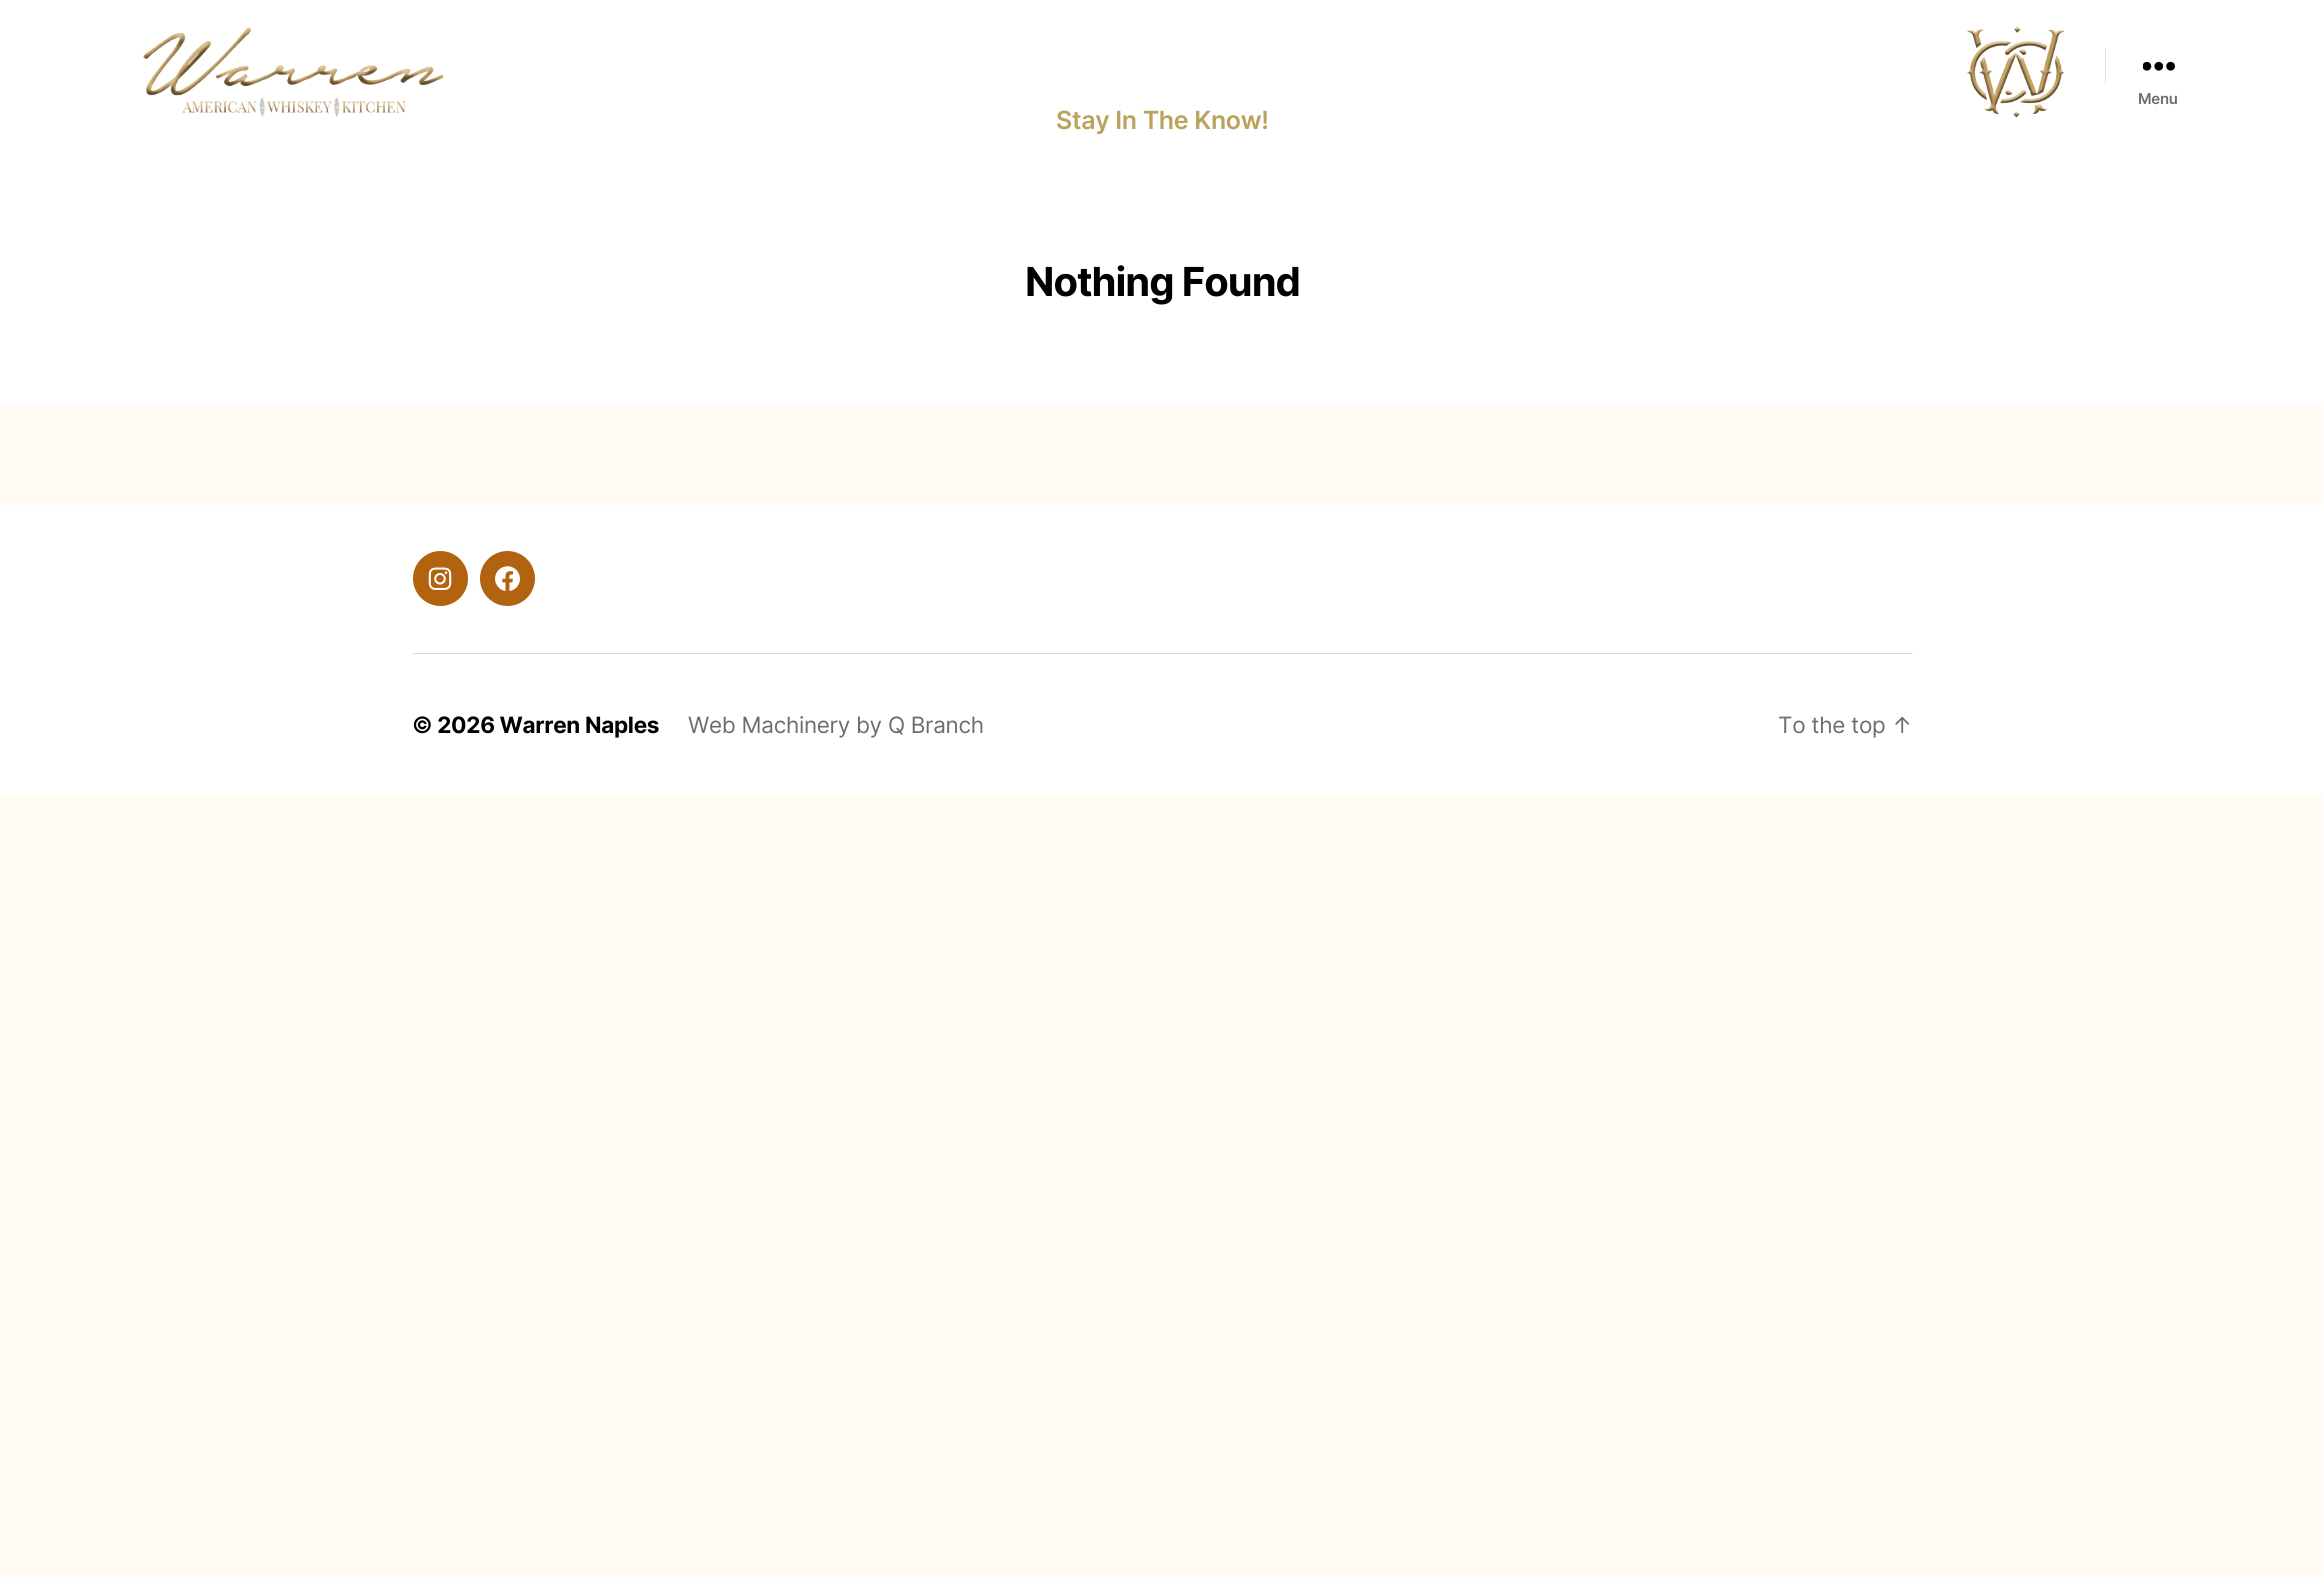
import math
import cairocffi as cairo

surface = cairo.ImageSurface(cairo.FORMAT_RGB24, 2323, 1577)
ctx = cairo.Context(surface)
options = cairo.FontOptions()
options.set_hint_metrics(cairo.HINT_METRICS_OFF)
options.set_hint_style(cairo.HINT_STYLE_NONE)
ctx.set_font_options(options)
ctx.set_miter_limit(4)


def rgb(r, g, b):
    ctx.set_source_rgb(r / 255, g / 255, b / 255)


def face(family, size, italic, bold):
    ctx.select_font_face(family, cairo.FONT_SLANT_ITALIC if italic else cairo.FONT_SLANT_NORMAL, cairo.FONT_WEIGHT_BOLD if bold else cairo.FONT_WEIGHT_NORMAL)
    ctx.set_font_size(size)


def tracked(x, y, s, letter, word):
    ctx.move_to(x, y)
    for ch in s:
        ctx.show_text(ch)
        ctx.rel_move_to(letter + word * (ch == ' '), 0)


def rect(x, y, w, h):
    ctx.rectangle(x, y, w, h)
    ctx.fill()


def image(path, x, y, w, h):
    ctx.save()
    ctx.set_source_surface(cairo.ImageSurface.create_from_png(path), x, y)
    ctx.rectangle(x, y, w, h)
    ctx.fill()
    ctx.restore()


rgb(255, 250, 242)
ctx.paint()
rgb(255, 255, 255)
rect(0, 0, 2323, 405)
image('image0.png', 143, 27, 301, 90)
image('image1.png', 1967, 26, 98, 92)
rgb(222, 223, 223)
rect(2105, 49, 1, 34)
image('image2.png', 2143, 61, 32, 10)
face('Inter SemiBold', 15, 0, 0)
rgb(109, 109, 109)
tracked(2138, 104, 'Menu', -0.3, 0)
face('Inter SemiBold', 25, 0, 0)
rgb(186, 163, 95)
tracked(1056, 129, 'Stay In The Know!', -0.3, 0)
face('Inter', 40, 0, 1)
rgb(0, 0, 0)
tracked(1025, 296, 'Nothing Found', -1, 0)
rgb(255, 255, 255)
rect(0, 505, 2323, 290)
rgb(219, 219, 219)
rect(413, 653, 1500, 1)
rgb(177, 99, 16)
ctx.new_path()
ctx.arc(440.5, 578.5, 27.5, 0, 2 * math.pi)
ctx.fill()
image('image3.png', 428, 567, 24, 23)
ctx.arc(507.5, 578.5, 27.5, 0, 2 * math.pi)
ctx.fill()
image('image4.png', 495, 566, 25, 26)
face('Inter', 22.5, 0, 1)
rgb(0, 0, 0)
tracked(412, 733, '© 2026 Warren Naples', -0.3, 0)
face('Inter', 22.5, 0, 0)
rgb(109, 109, 109)
tracked(688, 733, 'Web Machinery by Q Branch', -0.3, 0)
tracked(1778, 733, 'To the top ↑', -0.3, 0)
surface.write_to_png('render.png')
